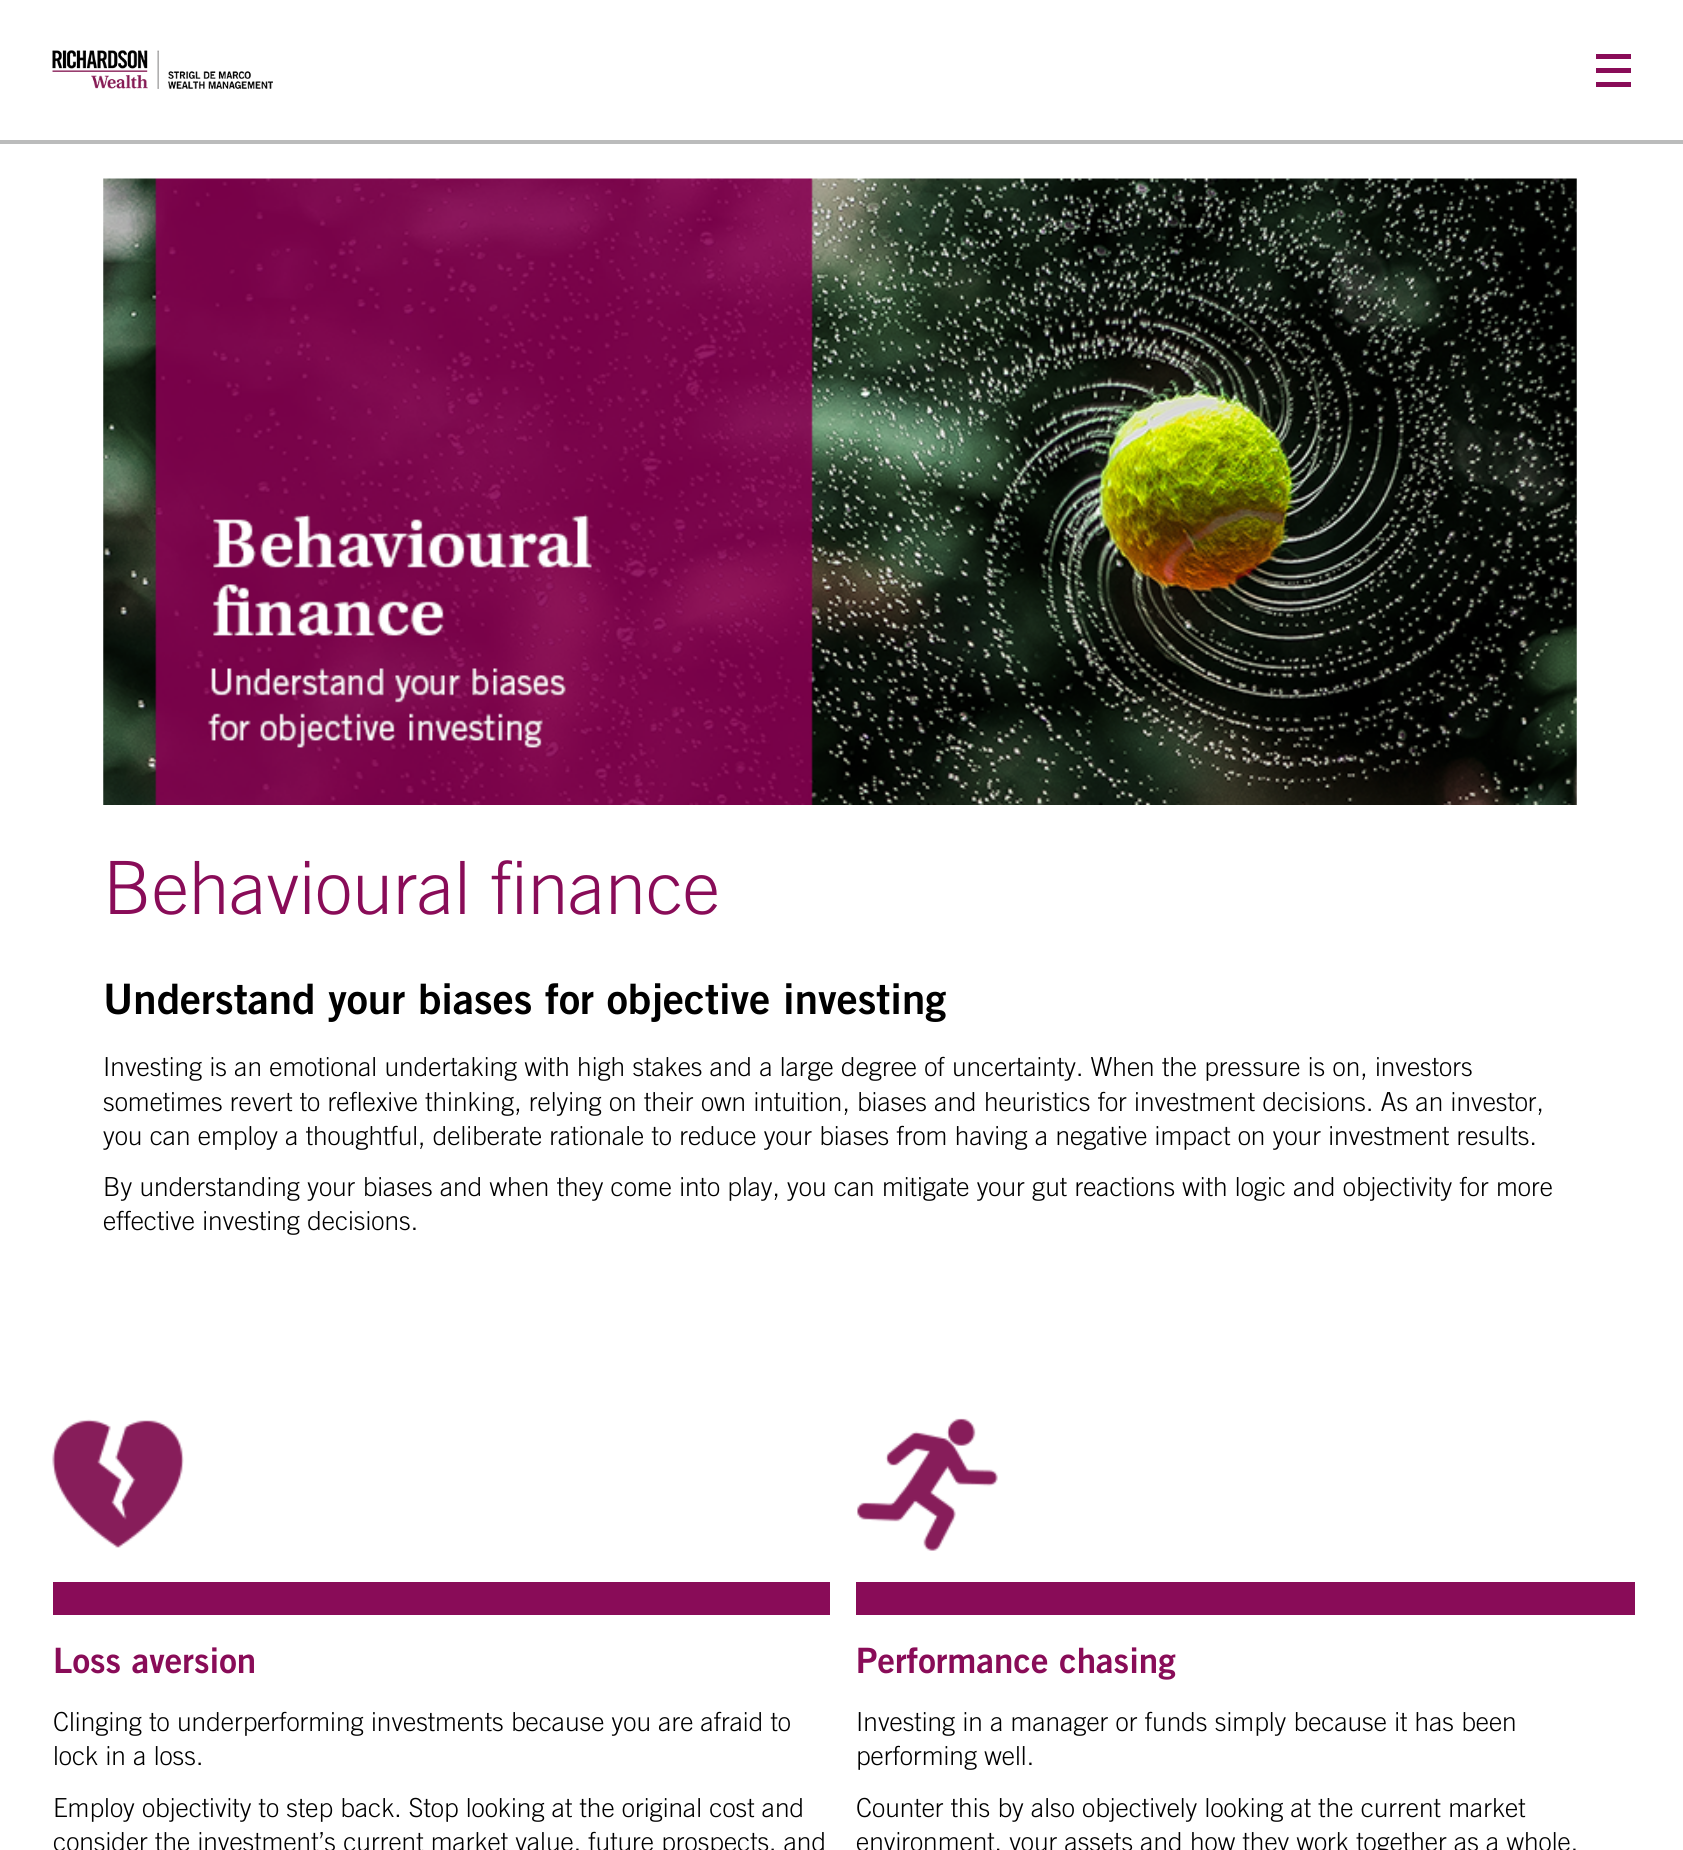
import math
import cairocffi as cairo

surface = cairo.ImageSurface(cairo.FORMAT_RGB24, 1683, 1850)
ctx = cairo.Context(surface)
options = cairo.FontOptions()
options.set_hint_metrics(cairo.HINT_METRICS_OFF)
options.set_hint_style(cairo.HINT_STYLE_NONE)
ctx.set_font_options(options)
ctx.set_miter_limit(4)


def rgb(r, g, b):
    ctx.set_source_rgb(r / 255, g / 255, b / 255)


def face(family, size, italic, bold):
    ctx.select_font_face(family, cairo.FONT_SLANT_ITALIC if italic else cairo.FONT_SLANT_NORMAL, cairo.FONT_WEIGHT_BOLD if bold else cairo.FONT_WEIGHT_NORMAL)
    ctx.set_font_size(size)


def label(x, y, s):
    ctx.move_to(x, y)
    ctx.show_text(s)


def rect(x, y, w, h):
    ctx.rectangle(x, y, w, h)
    ctx.fill()


def image(path, x, y, w, h):
    ctx.save()
    ctx.set_source_surface(cairo.ImageSurface.create_from_png(path), x, y)
    ctx.rectangle(x, y, w, h)
    ctx.fill()
    ctx.restore()


rgb(255, 255, 255)
ctx.paint()
rgb(187, 188, 188)
rect(0, 140, 1683, 4)
image('image0.png', 52, 50, 221, 39)
rgb(137, 12, 88)
rect(1596, 54, 35, 5)
rect(1596, 68, 35, 5)
rect(1596, 82, 35, 5)
image('image1.png', 103, 178, 1474, 627)
face('Trade Gothic Light', 73.5, 0, 0)
label(103, 914, 'Behavioural finance')
face('Trade Gothic', 42, 0, 1)
rgb(0, 0, 0)
label(103, 1014, 'Understand your biases for objective investing')
face('Trade Gothic Light', 26.25, 0, 0)
label(103, 1076, 'Investing is an emotional undertaking with high stakes and a large degree of uncertainty. When the pressure is on, investors')
label(103, 1111, 'sometimes revert to reflexive thinking, relying on their own intuition, biases and heuristics for investment decisions. As an investor,')
label(103, 1145, 'you can employ a thoughtful, deliberate rationale to reduce your biases from having a negative impact on your investment results.')
label(103, 1196, 'By understanding your biases and when they come into play, you can mitigate your gut reactions with logic and objectivity for more')
label(103, 1230, 'effective investing decisions.')
image('image2.png', 52, 1419, 132, 129)
rgb(137, 12, 88)
rect(53, 1582, 777, 33)
face('Trade Gothic', 35, 0, 1)
label(53, 1673, 'Loss aversion')
face('Trade Gothic Light', 26.25, 0, 0)
rgb(0, 0, 0)
label(53, 1731, 'Clinging to underperforming investments because you are afraid to')
label(53, 1765, 'lock in a loss.')
label(53, 1817, 'Employ objectivity to step back. Stop looking at the original cost and')
label(53, 1851, 'consider the investment’s current market value, future prospects, and')
image('image3.png', 857, 1418, 141, 133)
rgb(137, 12, 88)
rect(856, 1582, 779, 33)
face('Trade Gothic', 35, 0, 1)
label(856, 1673, 'Performance chasing')
face('Trade Gothic Light', 26.25, 0, 0)
rgb(0, 0, 0)
label(856, 1731, 'Investing in a manager or funds simply because it has been')
label(856, 1765, 'performing well.')
label(856, 1817, 'Counter this by also objectively looking at the current market')
label(856, 1851, 'environment, your assets and how they work together as a whole.')
surface.write_to_png('render.png')
